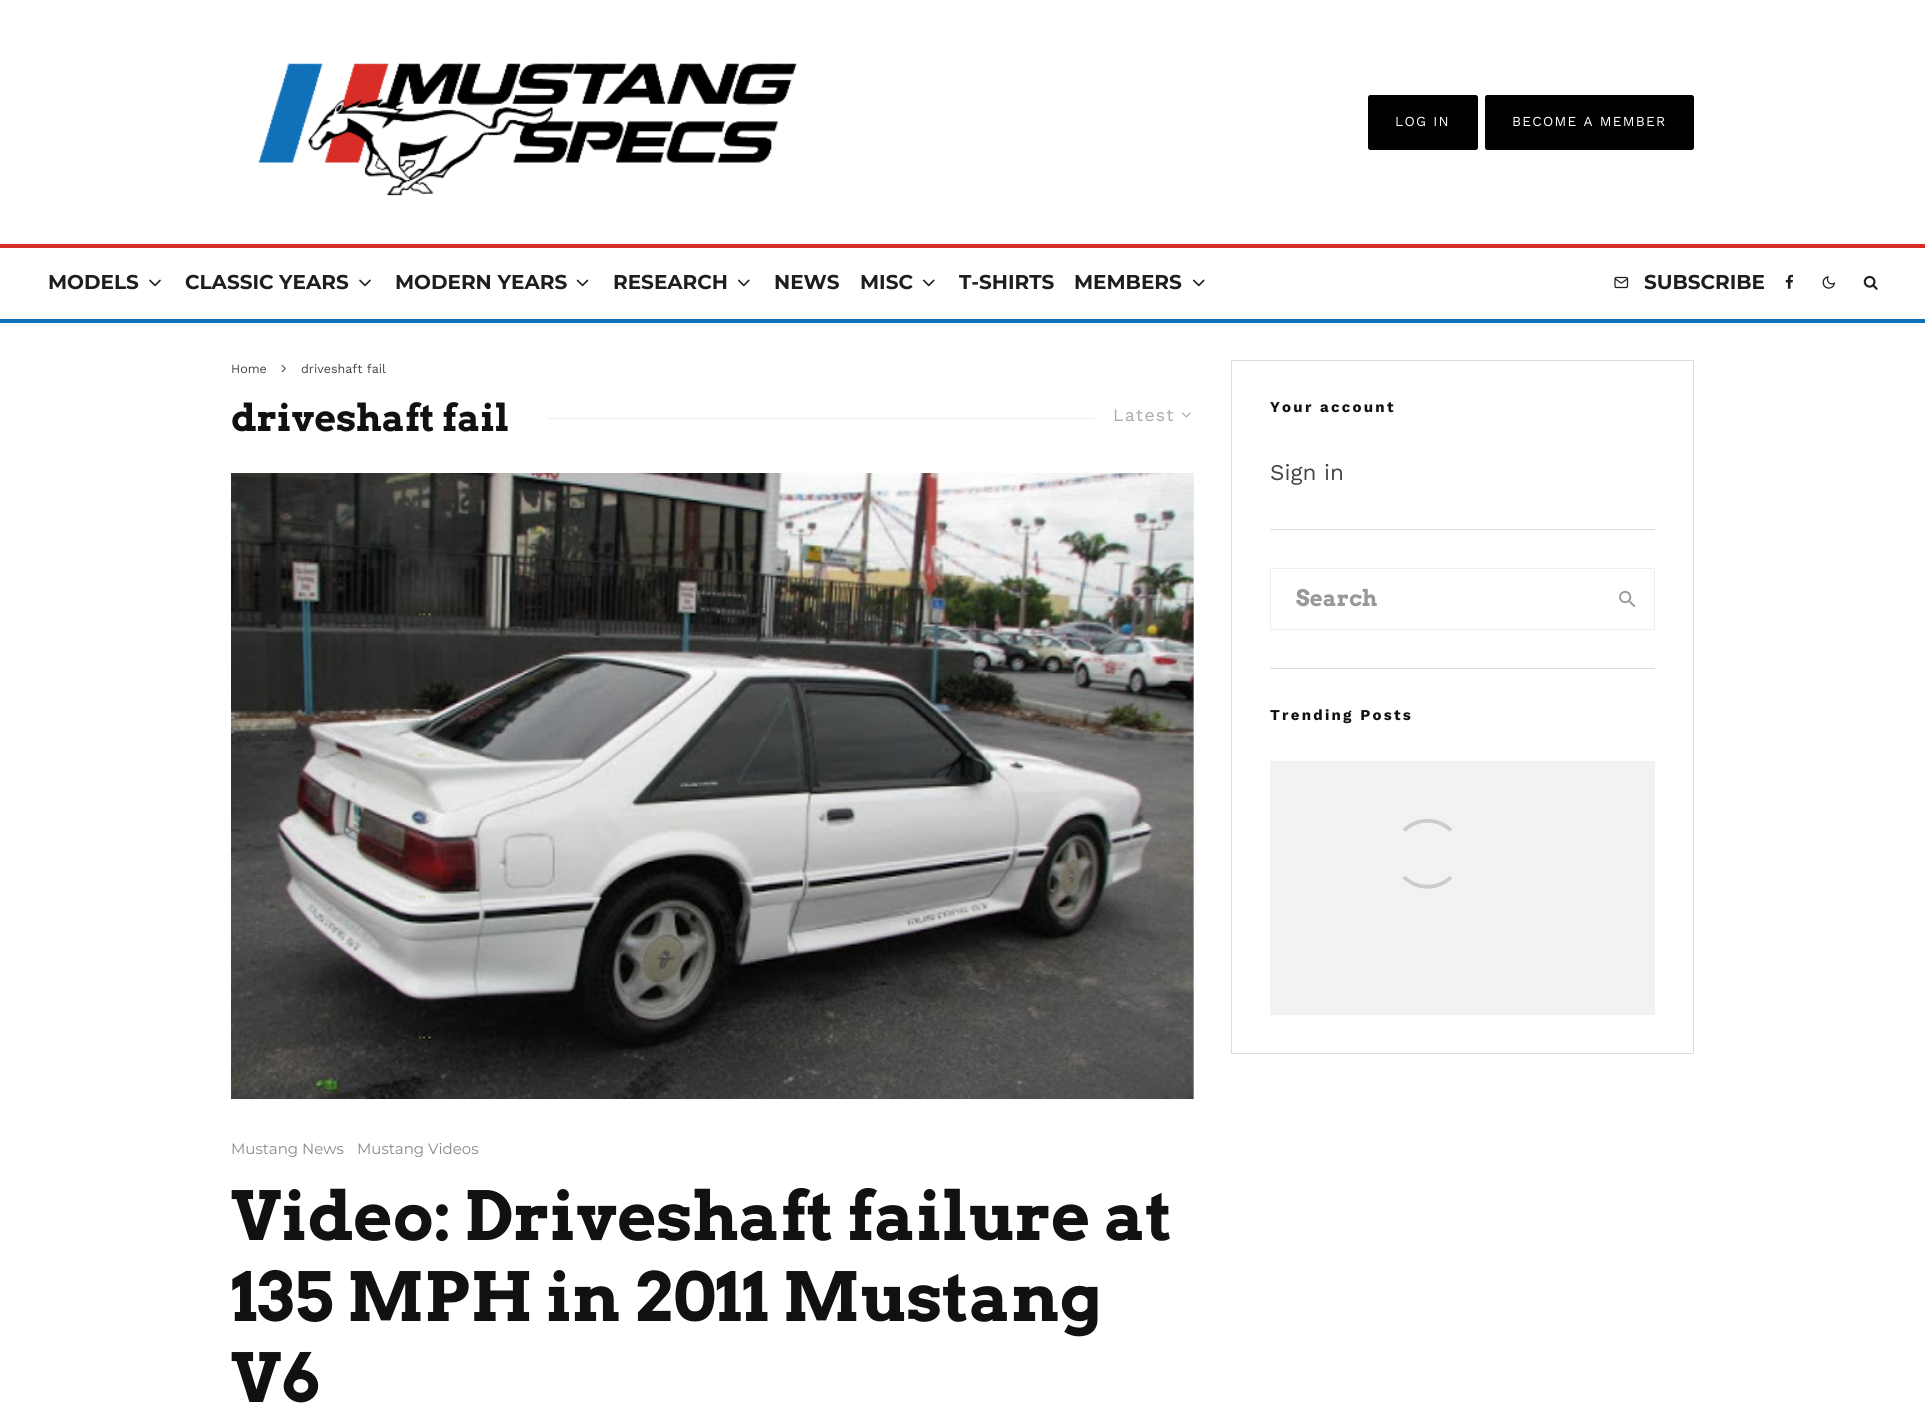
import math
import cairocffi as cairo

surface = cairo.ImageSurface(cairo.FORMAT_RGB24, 1925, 1411)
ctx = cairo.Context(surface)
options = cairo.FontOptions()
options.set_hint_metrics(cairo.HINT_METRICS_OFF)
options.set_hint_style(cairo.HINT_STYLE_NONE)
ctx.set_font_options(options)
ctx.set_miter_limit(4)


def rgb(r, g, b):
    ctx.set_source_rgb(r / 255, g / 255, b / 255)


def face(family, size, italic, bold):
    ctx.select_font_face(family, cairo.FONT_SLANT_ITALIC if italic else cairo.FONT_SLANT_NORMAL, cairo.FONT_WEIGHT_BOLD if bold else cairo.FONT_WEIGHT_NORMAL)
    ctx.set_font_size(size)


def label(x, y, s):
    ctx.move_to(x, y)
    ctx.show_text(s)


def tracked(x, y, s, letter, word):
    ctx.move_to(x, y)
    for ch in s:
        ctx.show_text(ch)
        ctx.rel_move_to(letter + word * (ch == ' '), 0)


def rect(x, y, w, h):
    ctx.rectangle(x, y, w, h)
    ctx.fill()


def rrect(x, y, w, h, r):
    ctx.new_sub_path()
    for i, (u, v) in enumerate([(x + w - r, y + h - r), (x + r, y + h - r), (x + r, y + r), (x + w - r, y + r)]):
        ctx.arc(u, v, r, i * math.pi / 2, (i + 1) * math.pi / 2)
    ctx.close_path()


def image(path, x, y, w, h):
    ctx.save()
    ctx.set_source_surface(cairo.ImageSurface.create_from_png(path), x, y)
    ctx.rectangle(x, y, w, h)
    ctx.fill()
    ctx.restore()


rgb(255, 255, 255)
ctx.paint()
image('image0.png', 258, 63, 539, 133)
rgb(0, 0, 0)
rrect(1368, 95, 110, 55, 2.5)
ctx.fill()
face('Work Sans', 13.75, 0, 0)
rgb(255, 255, 255)
tracked(1395, 126, 'LOG IN', 1.25, 0)
rgb(0, 0, 0)
rrect(1485, 95, 209, 55, 2.5)
ctx.fill()
rgb(255, 255, 255)
tracked(1512, 126, 'BECOME A MEMBER', 1.25, 0)
rgb(217, 46, 39)
rect(0, 244, 1925, 4)
rgb(14, 111, 185)
rect(0, 319, 1925, 4)
face('Montserrat', 20, 0, 1)
rgb(30, 30, 30)
label(48, 289, 'MODELS')
image('image1.png', 149, 279, 12, 8)
label(185, 289, 'CLASSIC YEARS')
image('image1.png', 359, 279, 12, 8)
label(395, 289, 'MODERN YEARS')
image('image2.png', 576, 279, 13, 8)
label(613, 289, 'RESEARCH')
image('image3.png', 738, 279, 12, 8)
label(774, 289, 'NEWS')
label(860, 289, 'MISC')
image('image3.png', 923, 279, 12, 8)
label(959, 289, 'T-SHIRTS')
label(1074, 289, 'MEMBERS')
image('image3.png', 1193, 279, 12, 8)
image('image4.png', 1614, 276, 15, 13)
label(1644, 289, 'SUBSCRIBE')
image('image5.png', 1785, 274, 9, 15)
image('image6.png', 1822, 276, 13, 13)
image('image7.png', 1863, 275, 15, 15)
face('Work Sans', 12.5, 0, 0)
rgb(68, 68, 68)
label(231, 373, 'Home')
image('image8.png', 281, 364, 5, 9)
label(301, 373, 'driveshaft fail')
face('Arvo', 37.5, 0, 1)
rgb(17, 17, 17)
label(231, 431, 'driveshaft fail')
rgb(238, 238, 238)
rect(548, 418, 547, 1)
face('Work Sans', 17.5, 0, 0)
rgb(170, 170, 170)
tracked(1113, 421, 'Latest', 1.25, 0)
image('image9.png', 1182, 412, 9, 6)
rgb(238, 238, 238)
rect(1193, 474, 1, 625)
image('image10.png', 231, 473, 963, 626)
face('Montserrat', 15, 0, 0)
rgb(136, 136, 136)
label(231, 1154, 'Mustang News')
label(357, 1154, 'Mustang Videos')
face('Arvo', 67.5, 0, 1)
rgb(17, 17, 17)
label(231, 1240, 'Video: Driveshaft failure at')
label(231, 1321, '135 MPH in 2011 Mustang')
label(231, 1402, 'V6')
ctx.rectangle(1231.5, 360.5, 462, 693)
rgb(221, 221, 221)
ctx.set_line_width(1)
ctx.stroke()
rect(1270, 529, 385, 1)
face('Work Sans', 15, 0, 1)
rgb(17, 17, 17)
tracked(1270, 412, 'Your account', 2.25, 0)
face('Work Sans', 22.5, 0, 0)
rgb(68, 68, 68)
label(1270, 480, 'Sign in')
rgb(221, 221, 221)
rect(1270, 668, 385, 1)
ctx.rectangle(1270.5, 568.5, 384, 61)
rgb(238, 238, 238)
ctx.stroke()
face('Arvo', 22.5, 0, 1)
rgb(153, 153, 153)
label(1296, 606, 'Search')
image('image11.png', 1619, 591, 17, 17)
face('Work Sans', 15, 0, 1)
rgb(17, 17, 17)
tracked(1270, 720, 'Trending Posts', 2.25, 0)
rgb(242, 242, 242)
rect(1270, 761, 385, 254)
ctx.new_path()
ctx.move_to(1404, 830.5)
ctx.curve_to(1417, 817.5, 1438, 817.5, 1451, 830.5)
rgb(204, 204, 204)
ctx.set_line_width(3.8)
ctx.stroke()
ctx.new_path()
ctx.move_to(1451, 877)
ctx.curve_to(1438, 890, 1417, 890, 1404, 877)
ctx.stroke()
surface.write_to_png('render.png')
